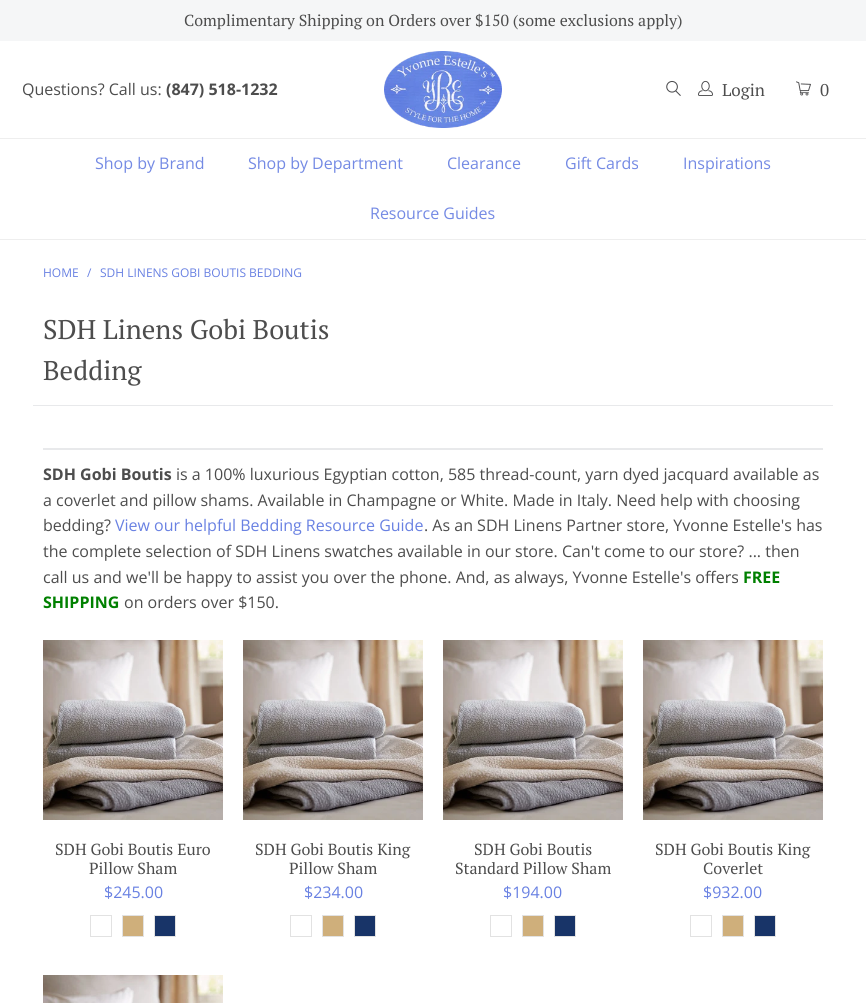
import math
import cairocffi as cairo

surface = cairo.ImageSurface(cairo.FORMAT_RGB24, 866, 1003)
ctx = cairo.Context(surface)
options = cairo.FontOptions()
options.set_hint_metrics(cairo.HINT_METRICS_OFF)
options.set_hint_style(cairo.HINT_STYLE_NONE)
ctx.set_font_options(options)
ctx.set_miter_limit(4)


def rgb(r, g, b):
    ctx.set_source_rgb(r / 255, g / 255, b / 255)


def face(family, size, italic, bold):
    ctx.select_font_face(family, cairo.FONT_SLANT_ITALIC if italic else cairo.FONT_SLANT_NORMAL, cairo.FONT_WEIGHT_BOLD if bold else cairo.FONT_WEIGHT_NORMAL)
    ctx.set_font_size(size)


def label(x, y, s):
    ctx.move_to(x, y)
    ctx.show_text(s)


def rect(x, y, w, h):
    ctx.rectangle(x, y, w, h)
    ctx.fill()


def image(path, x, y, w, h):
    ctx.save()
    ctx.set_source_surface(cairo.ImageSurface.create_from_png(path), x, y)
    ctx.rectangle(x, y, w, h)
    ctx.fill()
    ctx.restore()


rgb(255, 255, 255)
ctx.paint()
rgb(245, 246, 247)
rect(0, 0, 866, 41)
face('PT Serif', 15.95, 0, 0)
rgb(77, 77, 77)
label(184, 26, 'Complimentary Shipping on Orders over $150 (some exclusions apply)')
face('Open Sans', 16, 0, 0)
label(22, 95, 'Questions? Call us:')
face('Open Sans', 16, 0, 1)
label(166, 95, '(847) 518-1232')
image('image0.png', 384, 51, 118, 77)
image('image1.png', 666, 80, 15, 16)
image('image2.png', 698, 80, 15, 16)
face('PT Serif', 17, 0, 0)
label(722, 96, 'Login')
image('image3.png', 796, 81, 15, 15)
label(820, 96, '0')
rgb(238, 238, 238)
rect(0, 138, 866, 1)
rect(0, 239, 866, 1)
face('Open Sans', 16, 0, 0)
rgb(116, 138, 228)
label(95, 169, 'Shop by Brand')
label(248, 169, 'Shop by Department')
label(447, 169, 'Clearance')
label(565, 169, 'Gift Cards')
label(683, 169, 'Inspirations')
label(370, 219, 'Resource Guides')
face('Open Sans', 12, 0, 0)
rgb(105, 129, 226)
label(43, 277, 'HOME')
label(87, 277, '/')
label(100, 277, 'SDH LINENS GOBI BOUTIS BEDDING')
rgb(232, 233, 235)
rect(33, 405, 800, 1)
face('PT Serif', 27, 0, 0)
rgb(77, 77, 77)
label(43, 339, 'SDH Linens Gobi Boutis')
label(43, 380, 'Bedding')
rgb(232, 233, 235)
rect(43, 448, 780, 2)
face('Open Sans', 16, 0, 1)
rgb(77, 77, 77)
label(43, 480, 'SDH Gobi Boutis')
face('Open Sans', 16, 0, 0)
label(176, 480, 'is a 100% luxurious Egyptian cotton, 585 thread-count, yarn dyed jacquard available as')
label(43, 506, 'a coverlet and pillow shams. Available in Champagne or White. Made in Italy. Need help with choosing')
label(43, 531, 'bedding?')
rgb(105, 129, 226)
label(115, 531, 'View our helpful Bedding Resource Guide')
rgb(77, 77, 77)
label(424, 531, '. As an SDH Linens Partner store, Yvonne Estelle\'s has')
label(43, 557, 'the complete selection of SDH Linens swatches available in our store. Can\'t come to our store? ... then')
label(43, 583, 'call us and we\'ll be happy to assist you over the phone. And, as always, Yvonne Estelle\'s offers')
face('Open Sans', 16, 0, 1)
rgb(0, 128, 0)
label(743, 583, 'FREE')
label(43, 608, 'SHIPPING')
face('Open Sans', 16, 0, 0)
rgb(77, 77, 77)
label(124, 608, 'on orders over $150.')
image('image4.png', 43, 640, 180, 180)
face('PT Serif', 16, 0, 0)
label(55, 855, 'SDH Gobi Boutis Euro')
label(89, 874, 'Pillow Sham')
face('Open Sans', 16, 0, 0)
rgb(105, 129, 226)
label(104, 898, '$245.00')
ctx.rectangle(90.5, 915.5, 21, 21)
rgb(226, 226, 226)
ctx.set_line_width(1)
ctx.stroke()
rgb(207, 175, 123)
ctx.rectangle(122.5, 915.5, 21, 21)
ctx.fill_preserve()
rgb(226, 226, 226)
ctx.stroke()
rgb(24, 52, 104)
ctx.rectangle(154.5, 915.5, 21, 21)
ctx.fill_preserve()
rgb(226, 226, 226)
ctx.stroke()
image('image5.png', 243, 640, 180, 180)
face('PT Serif', 16, 0, 0)
rgb(77, 77, 77)
label(255, 855, 'SDH Gobi Boutis King')
label(289, 874, 'Pillow Sham')
face('Open Sans', 16, 0, 0)
rgb(105, 129, 226)
label(304, 898, '$234.00')
ctx.rectangle(290.5, 915.5, 21, 21)
rgb(226, 226, 226)
ctx.stroke()
rgb(207, 175, 123)
ctx.rectangle(322.5, 915.5, 21, 21)
ctx.fill_preserve()
rgb(226, 226, 226)
ctx.stroke()
rgb(24, 52, 104)
ctx.rectangle(354.5, 915.5, 21, 21)
ctx.fill_preserve()
rgb(226, 226, 226)
ctx.stroke()
image('image5.png', 443, 640, 180, 180)
face('PT Serif', 16, 0, 0)
rgb(77, 77, 77)
label(474, 855, 'SDH Gobi Boutis')
label(455, 874, 'Standard Pillow Sham')
face('Open Sans', 16, 0, 0)
rgb(105, 129, 226)
label(503, 898, '$194.00')
ctx.rectangle(490.5, 915.5, 21, 21)
rgb(226, 226, 226)
ctx.stroke()
rgb(207, 175, 123)
ctx.rectangle(522.5, 915.5, 21, 21)
ctx.fill_preserve()
rgb(226, 226, 226)
ctx.stroke()
rgb(24, 52, 104)
ctx.rectangle(554.5, 915.5, 21, 21)
ctx.fill_preserve()
rgb(226, 226, 226)
ctx.stroke()
image('image5.png', 643, 640, 180, 180)
face('PT Serif', 16, 0, 0)
rgb(77, 77, 77)
label(655, 855, 'SDH Gobi Boutis King')
label(703, 874, 'Coverlet')
face('Open Sans', 16, 0, 0)
rgb(105, 129, 226)
label(703, 898, '$932.00')
ctx.rectangle(690.5, 915.5, 21, 21)
rgb(226, 226, 226)
ctx.stroke()
rgb(207, 175, 123)
ctx.rectangle(722.5, 915.5, 21, 21)
ctx.fill_preserve()
rgb(226, 226, 226)
ctx.stroke()
rgb(24, 52, 104)
ctx.rectangle(754.5, 915.5, 21, 21)
ctx.fill_preserve()
rgb(226, 226, 226)
ctx.stroke()
image('image6.png', 43, 975, 180, 28)
surface.write_to_png('render.png')
